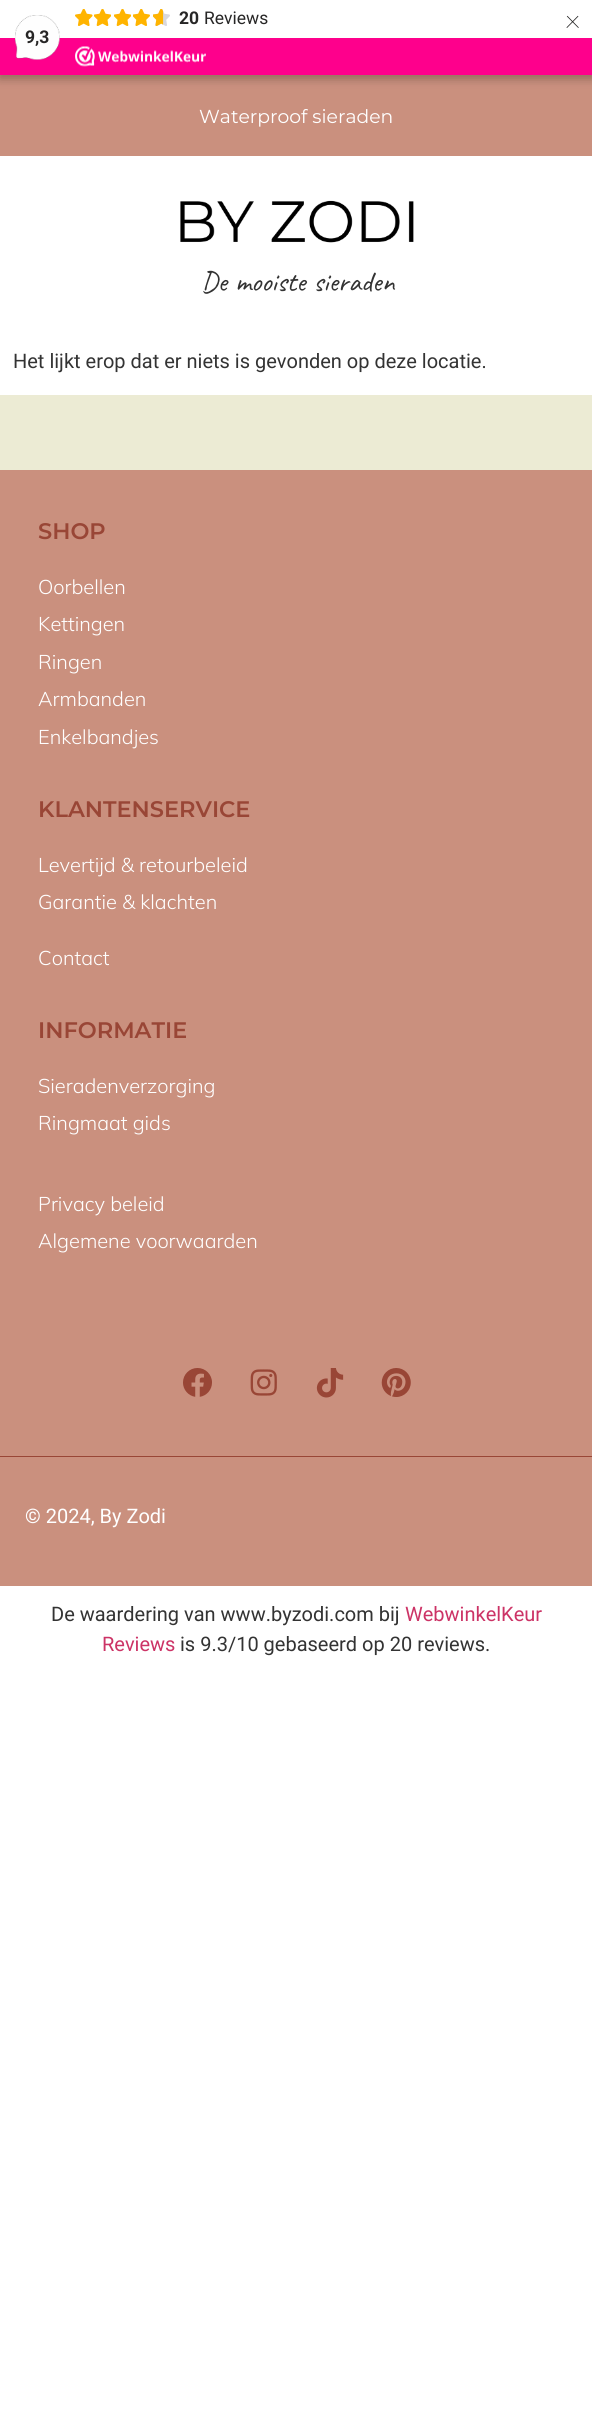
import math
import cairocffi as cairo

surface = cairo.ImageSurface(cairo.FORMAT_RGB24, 592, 2409)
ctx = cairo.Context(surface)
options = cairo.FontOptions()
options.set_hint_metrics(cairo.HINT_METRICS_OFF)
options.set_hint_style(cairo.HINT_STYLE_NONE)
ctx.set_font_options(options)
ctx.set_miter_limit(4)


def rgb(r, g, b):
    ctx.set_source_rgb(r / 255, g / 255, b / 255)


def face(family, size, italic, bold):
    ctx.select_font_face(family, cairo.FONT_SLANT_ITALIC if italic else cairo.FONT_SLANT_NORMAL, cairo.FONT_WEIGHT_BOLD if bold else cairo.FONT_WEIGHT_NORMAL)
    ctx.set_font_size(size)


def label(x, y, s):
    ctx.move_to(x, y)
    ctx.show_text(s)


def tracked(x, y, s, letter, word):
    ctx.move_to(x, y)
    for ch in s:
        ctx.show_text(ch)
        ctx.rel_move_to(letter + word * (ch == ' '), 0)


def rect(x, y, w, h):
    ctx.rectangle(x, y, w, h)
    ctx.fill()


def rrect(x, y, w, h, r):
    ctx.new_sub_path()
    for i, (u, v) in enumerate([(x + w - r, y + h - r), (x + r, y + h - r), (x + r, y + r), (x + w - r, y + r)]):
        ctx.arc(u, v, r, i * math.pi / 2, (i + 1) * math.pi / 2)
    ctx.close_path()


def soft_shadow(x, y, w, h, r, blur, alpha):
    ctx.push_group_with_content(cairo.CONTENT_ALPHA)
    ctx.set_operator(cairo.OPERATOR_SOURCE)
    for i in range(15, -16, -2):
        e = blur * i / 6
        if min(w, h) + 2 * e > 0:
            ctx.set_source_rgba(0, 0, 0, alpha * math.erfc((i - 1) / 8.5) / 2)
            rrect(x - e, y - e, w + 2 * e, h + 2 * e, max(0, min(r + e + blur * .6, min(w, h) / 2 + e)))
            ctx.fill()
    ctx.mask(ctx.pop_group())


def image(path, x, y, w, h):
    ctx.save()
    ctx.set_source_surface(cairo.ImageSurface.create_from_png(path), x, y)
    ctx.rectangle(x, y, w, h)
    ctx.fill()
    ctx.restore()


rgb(255, 255, 255)
ctx.paint()
rgb(202, 144, 126)
rect(0, 75, 592, 81)
rgb(0, 0, 0)
soft_shadow(-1, -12, 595, 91, 0, 4, 0.15)
soft_shadow(0, 3, 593, 75, 0, 6, 0.15)
rgb(255, 255, 255)
rect(0, 0, 592, 38)
image('image0.png', 75, 9, 18, 17)
image('image1.png', 94, 9, 17, 17)
image('image1.png', 114, 9, 17, 17)
image('image2.png', 133, 9, 17, 17)
image('image3.png', 153, 9, 17, 17)
image('image4.png', 153, 9, 11, 17)
face('Roboto', 17.5, 0, 1)
rgb(39, 38, 38)
label(179, 24, '20')
face('Roboto', 17.5, 0, 0)
label(204, 24, 'Reviews')
face('Roboto Thin', 30, 0, 0)
label(565, 28, '×')
rgb(254, 0, 140)
rect(0, 38, 592, 37)
image('image5.png', 15, 15, 45, 45)
face('Roboto', 17.5, 0, 1)
rgb(39, 38, 38)
label(25, 43, '9,3')
image('image6.png', 75, 46, 131, 21)
face('Montserrat', 18.75, 0, 0)
rgb(255, 255, 255)
label(199, 123, 'Waterproof sieraden')
image('image7.png', 180, 200, 234, 43)
face('Caveat', 28.75, 0, 0)
rgb(51, 51, 51)
tracked(201, 291, 'De mooiste sieraden', 0, 1)
face('Roboto', 20, 0, 0)
label(13, 368, 'Het lijkt erop dat er niets is gevonden op deze locatie.')
rgb(236, 235, 212)
rect(0, 395, 592, 75)
rgb(202, 144, 126)
rect(0, 470, 592, 1116)
face('Montserrat SemiBold', 22.5, 0, 0)
rgb(153, 70, 54)
label(38, 539, 'SHOP')
face('Mulish Light', 20, 0, 0)
rgb(255, 255, 255)
label(38, 594, 'Oorbellen')
label(38, 631, 'Kettingen')
label(38, 669, 'Ringen')
label(38, 706, 'Armbanden')
label(38, 744, 'Enkelbandjes')
face('Montserrat SemiBold', 22.5, 0, 0)
rgb(153, 70, 54)
label(38, 817, 'KLANTENSERVICE')
face('Mulish Light', 20, 0, 0)
rgb(255, 255, 255)
label(38, 872, 'Levertijd & retourbeleid')
label(38, 909, 'Garantie & klachten')
label(38, 965, 'Contact')
face('Montserrat SemiBold', 22.5, 0, 0)
rgb(153, 70, 54)
label(38, 1038, 'INFORMATIE')
face('Mulish Light', 20, 0, 0)
rgb(255, 255, 255)
label(38, 1093, 'Sieradenverzorging')
label(38, 1130, 'Ringmaat gids')
label(38, 1211, 'Privacy beleid')
label(38, 1248, 'Algemene voorwaarden')
image('image8.png', 183, 1368, 29, 29)
image('image9.png', 250, 1369, 27, 27)
image('image10.png', 316, 1368, 28, 30)
image('image11.png', 381, 1368, 30, 29)
rgb(153, 70, 54)
rect(0, 1456, 592, 1)
face('Roboto', 20, 0, 0)
rgb(255, 255, 255)
label(25, 1523, '© 2024, By Zodi')
rgb(51, 51, 51)
label(51, 1621, 'De waardering van www.byzodi.com bij')
rgb(204, 51, 102)
label(405, 1621, 'WebwinkelKeur')
label(102, 1651, 'Reviews')
rgb(51, 51, 51)
label(180, 1651, 'is 9.3/10 gebaseerd op 20 reviews.')
surface.write_to_png('render.png')
